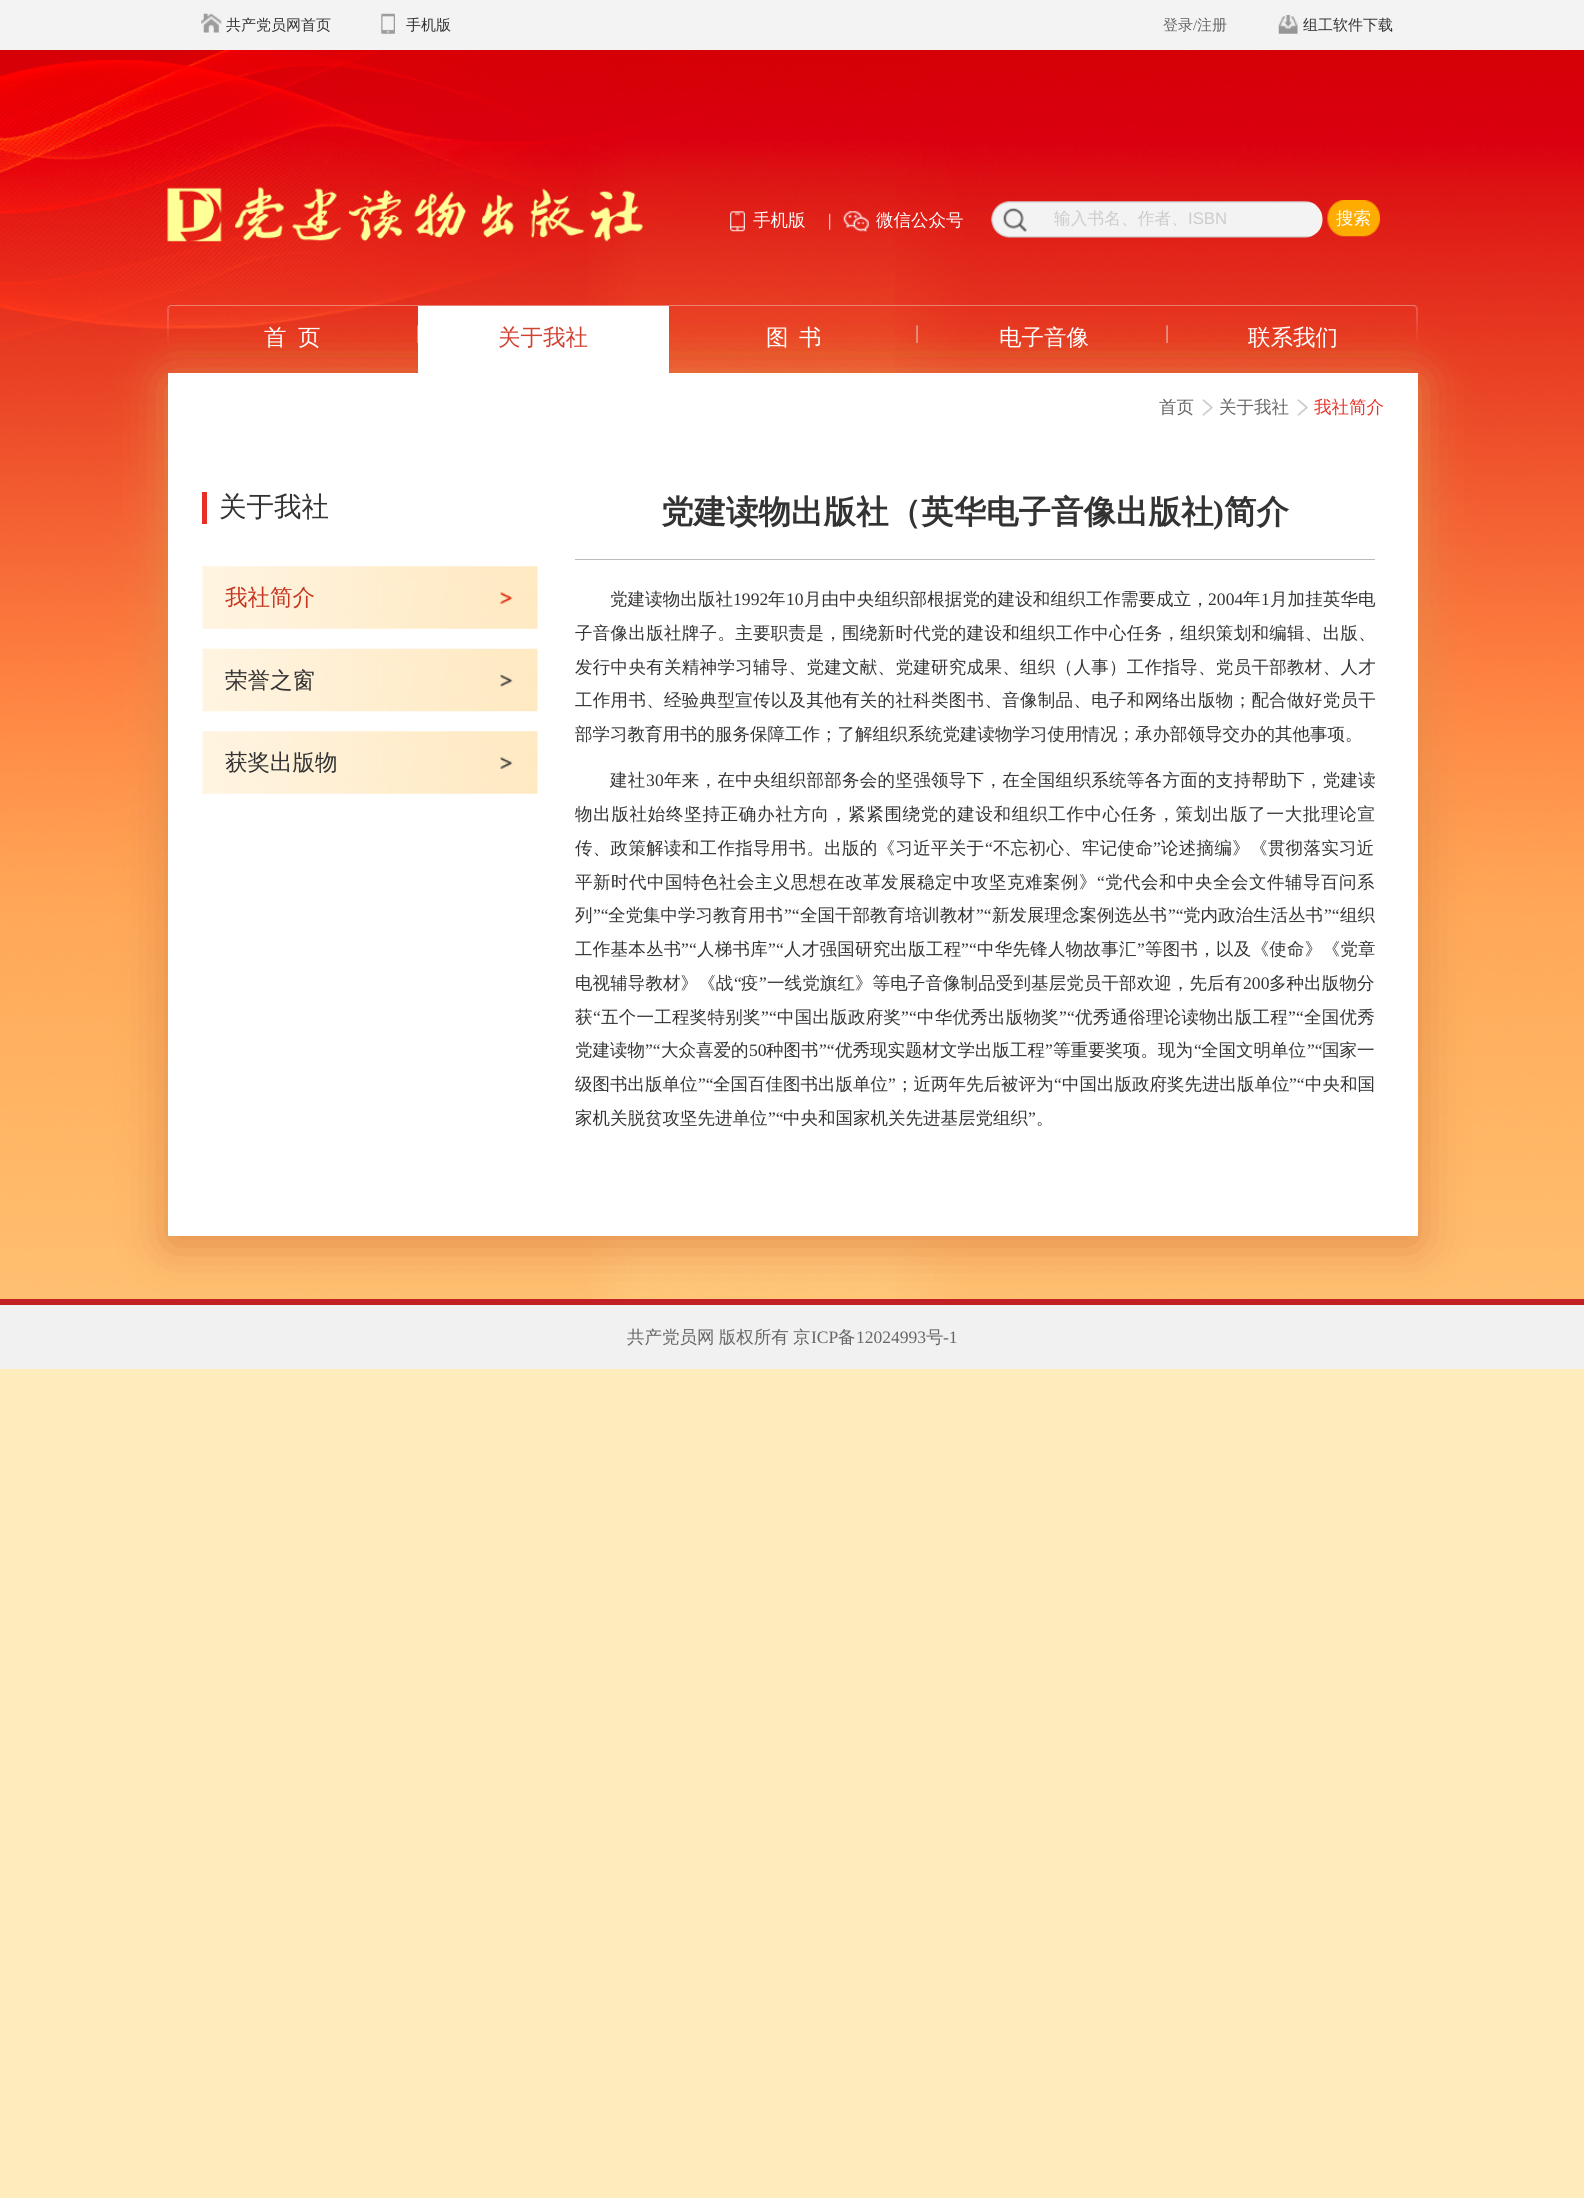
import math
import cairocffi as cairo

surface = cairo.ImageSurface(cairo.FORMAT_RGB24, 1584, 2198)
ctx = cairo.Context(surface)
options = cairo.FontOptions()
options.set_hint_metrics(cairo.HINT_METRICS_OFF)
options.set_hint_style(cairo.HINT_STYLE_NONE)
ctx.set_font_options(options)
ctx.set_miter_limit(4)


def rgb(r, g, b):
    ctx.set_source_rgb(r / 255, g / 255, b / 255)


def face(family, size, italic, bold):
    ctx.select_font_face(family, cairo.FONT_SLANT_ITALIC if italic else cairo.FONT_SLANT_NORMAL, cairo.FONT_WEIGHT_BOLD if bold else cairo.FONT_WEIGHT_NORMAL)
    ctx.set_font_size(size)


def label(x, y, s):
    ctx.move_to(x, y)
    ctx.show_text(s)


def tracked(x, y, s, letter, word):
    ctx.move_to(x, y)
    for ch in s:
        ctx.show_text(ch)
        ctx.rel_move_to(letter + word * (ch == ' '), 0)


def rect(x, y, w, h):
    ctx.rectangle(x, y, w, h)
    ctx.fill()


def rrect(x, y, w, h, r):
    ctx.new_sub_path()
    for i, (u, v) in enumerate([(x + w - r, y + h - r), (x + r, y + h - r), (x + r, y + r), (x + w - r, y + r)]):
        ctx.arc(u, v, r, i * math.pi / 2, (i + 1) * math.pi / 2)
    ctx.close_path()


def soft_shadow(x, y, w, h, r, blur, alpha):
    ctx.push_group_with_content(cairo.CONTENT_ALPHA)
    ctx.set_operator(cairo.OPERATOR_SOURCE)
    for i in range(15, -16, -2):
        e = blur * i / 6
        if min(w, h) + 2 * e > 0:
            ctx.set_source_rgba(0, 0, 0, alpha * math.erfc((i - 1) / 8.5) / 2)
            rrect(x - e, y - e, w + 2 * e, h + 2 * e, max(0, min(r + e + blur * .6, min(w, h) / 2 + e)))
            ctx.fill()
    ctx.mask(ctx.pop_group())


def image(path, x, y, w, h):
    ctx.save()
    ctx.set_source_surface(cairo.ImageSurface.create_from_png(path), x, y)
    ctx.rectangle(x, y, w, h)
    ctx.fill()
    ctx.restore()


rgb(255, 236, 188)
ctx.paint()
rgb(243, 243, 243)
rect(0, 0, 1584, 50)
image('image0.png', 201, 13, 21, 20)
face('WenQuanYi Zen Hei Medium', 15, 0, 0)
rgb(51, 51, 51)
label(226, 30, '共产党员网首页')
image('image1.png', 381, 13, 14, 21)
label(406, 30, '手机版')
rgb(102, 102, 102)
label(1163, 30, '登录')
face('Liberation Serif', 15, 0, 0)
label(1193, 30, '/')
face('WenQuanYi Zen Hei Medium', 15, 0, 0)
label(1197, 30, '注册')
image('image2.png', 1278, 15, 20, 19)
rgb(51, 51, 51)
label(1303, 30, '组工软件下载')
image('image3.png', 0, 50, 1584, 1249)
image('image4.png', 167, 187, 476, 55)
image('image5.png', 730, 211, 15, 21)
face('WenQuanYi Zen Hei Medium', 17.5, 0, 0)
rgb(255, 255, 255)
label(753, 226, '手机版')
face('Liberation Serif', 17.5, 0, 0)
label(828, 226, '|')
image('image6.png', 843, 211, 26, 21)
face('WenQuanYi Zen Hei Medium', 17.5, 0, 0)
label(876, 226, '微信公众号')
image('image7.png', 991, 201, 332, 37)
face('WenQuanYi Zen Hei Medium', 16.75, 0, 0)
rgb(204, 204, 204)
label(1054, 224, '输入书名、作者、')
face('Liberation Sans', 16.75, 0, 0)
label(1188, 224, 'ISBN')
image('image8.png', 1327, 200, 53, 37)
face('WenQuanYi Zen Hei Medium', 17.5, 0, 0)
rgb(255, 255, 255)
label(1336, 224, '搜索')
image('image9.png', 167, 305, 1251, 53)
rgb(226, 140, 74)
soft_shadow(168, 380, 1250, 864, 0, 25, 1)
face('WenQuanYi Zen Hei Medium', 22.5, 0, 0)
rgb(255, 255, 255)
label(264, 345, '首')
label(298, 345, '页')
rect(418, 306, 251, 67)
rgb(209, 66, 51)
label(498, 345, '关于我社')
rgb(255, 255, 255)
label(766, 345, '图')
label(799, 345, '书')
label(999, 345, '电子音像')
label(1248, 345, '联系我们')
rect(168, 373, 1250, 863)
image('image10.png', 1202, 399, 11, 17)
face('WenQuanYi Zen Hei Medium', 17.5, 0, 0)
rgb(102, 102, 102)
label(1159, 413, '首页')
image('image10.png', 1297, 399, 11, 17)
label(1219, 413, '关于我社')
rgb(231, 50, 41)
label(1314, 413, '我社简介')
rgb(230, 48, 38)
rect(202, 492, 5, 32)
face('WenQuanYi Zen Hei Medium', 27.5, 0, 0)
rgb(51, 51, 51)
label(219, 516, '关于我社')
image('image11.png', 202, 566, 336, 63)
image('image12.png', 500, 592, 13, 12)
face('WenQuanYi Zen Hei Medium', 22.5, 0, 0)
rgb(199, 54, 32)
label(225, 605, '我社简介')
image('image13.png', 202, 648, 336, 64)
image('image14.png', 500, 675, 13, 12)
rgb(51, 51, 51)
label(225, 688, '荣誉之窗')
image('image15.png', 202, 731, 336, 63)
image('image16.png', 500, 757, 13, 12)
label(225, 770, '获奖出版物')
rgb(187, 187, 187)
rect(575, 559, 800, 1)
face('WenQuanYi Zen Hei', 32.5, 0, 1)
rgb(51, 51, 51)
label(661, 523, '党建读物出版社（英华电子音像出版社')
face('Liberation Serif', 32.5, 0, 1)
label(1213, 523, ')')
face('WenQuanYi Zen Hei', 32.5, 0, 1)
label(1224, 523, '简介')
face('WenQuanYi Zen Hei Medium', 17.5, 0, 0)
tracked(610, 605, '党建读物出版社', 0.1, 0)
face('Liberation Serif', 17.5, 0, 0)
tracked(733, 605, '1992', 0.1, 0)
face('WenQuanYi Zen Hei Medium', 17.5, 0, 0)
tracked(768, 605, '年', 0.1, 0)
face('Liberation Serif', 17.5, 0, 0)
tracked(786, 605, '10', 0.1, 0)
face('WenQuanYi Zen Hei Medium', 17.5, 0, 0)
tracked(804, 605, '月由中央组织部根据党的建设和组织工作需要成立，', 0.1, 0)
face('Liberation Serif', 17.5, 0, 0)
tracked(1208, 605, '2004', 0.1, 0)
face('WenQuanYi Zen Hei Medium', 17.5, 0, 0)
tracked(1243, 605, '年', 0.1, 0)
face('Liberation Serif', 17.5, 0, 0)
tracked(1261, 605, '1', 0.1, 0)
face('WenQuanYi Zen Hei Medium', 17.5, 0, 0)
tracked(1270, 605, '月加挂英华电', 0.1, 0)
tracked(575, 639, '子音像出版社牌子。主要职责是，围绕新时代党的建设和组织工作中心任务，组织策划和编辑、出版、', 0.3, 0)
tracked(575, 673, '发行中央有关精神学习辅导、党建文献、党建研究成果、组织（人事）工作指导、党员干部教材、人才', 0.3, 0)
tracked(575, 706, '工作用书、经验典型宣传以及其他有关的社科类图书、音像制品、电子和网络出版物；配合做好党员干', 0.3, 0)
label(575, 740, '部学习教育用书的服务保障工作；了解组织系统党建读物学习使用情况；承办部领导交办的其他事项。')
tracked(610, 786, '建社', 0.3, 0)
face('Liberation Serif', 17.5, 0, 0)
tracked(646, 786, '30', 0.3, 0)
face('WenQuanYi Zen Hei Medium', 17.5, 0, 0)
tracked(664, 786, '年来，在中央组织部部务会的坚强领导下，在全国组织系统等各方面的支持帮助下，党建读', 0.3, 0)
tracked(575, 820, '物出版社始终坚持正确办社方向，紧紧围绕党的建设和组织工作中心任务，策划出版了一大批理论宣', 0.7, 0)
tracked(575, 854, '传、政策解读和工作指导用书。出版的《习近平关于', 0.3, 0)
face('Liberation Serif', 17.5, 0, 0)
tracked(985, 854, '“', 0.3, 0)
face('WenQuanYi Zen Hei Medium', 17.5, 0, 0)
tracked(993, 854, '不忘初心、牢记使命', 0.3, 0)
face('Liberation Serif', 17.5, 0, 0)
tracked(1153, 854, '”', 0.3, 0)
face('WenQuanYi Zen Hei Medium', 17.5, 0, 0)
tracked(1161, 854, '论述摘编》《贯彻落实习近', 0.3, 0)
tracked(575, 888, '平新时代中国特色社会主义思想在改革发展稳定中攻坚克难案例》', 0.5, 0)
face('Liberation Serif', 17.5, 0, 0)
tracked(1097, 888, '“', 0.5, 0)
face('WenQuanYi Zen Hei Medium', 17.5, 0, 0)
tracked(1105, 888, '党代会和中央全会文件辅导百问系', 0.5, 0)
label(575, 921, '列')
face('Liberation Serif', 17.5, 0, 0)
label(593, 921, '”“')
face('WenQuanYi Zen Hei Medium', 17.5, 0, 0)
label(608, 921, '全党集中学习教育用书')
face('Liberation Serif', 17.5, 0, 0)
label(784, 921, '”“')
face('WenQuanYi Zen Hei Medium', 17.5, 0, 0)
label(800, 921, '全国干部教育培训教材')
face('Liberation Serif', 17.5, 0, 0)
label(976, 921, '”“')
face('WenQuanYi Zen Hei Medium', 17.5, 0, 0)
label(992, 921, '新发展理念案例选丛书')
face('Liberation Serif', 17.5, 0, 0)
label(1168, 921, '”“')
face('WenQuanYi Zen Hei Medium', 17.5, 0, 0)
label(1183, 921, '党内政治生活丛书')
face('Liberation Serif', 17.5, 0, 0)
label(1324, 921, '”“')
face('WenQuanYi Zen Hei Medium', 17.5, 0, 0)
label(1340, 921, '组织')
tracked(575, 955, '工作基本丛书', 0.25, 0)
face('Liberation Serif', 17.5, 0, 0)
tracked(681, 955, '”“', 0.25, 0)
face('WenQuanYi Zen Hei Medium', 17.5, 0, 0)
tracked(697, 955, '人梯书库', 0.25, 0)
face('Liberation Serif', 17.5, 0, 0)
tracked(768, 955, '”“', 0.25, 0)
face('WenQuanYi Zen Hei Medium', 17.5, 0, 0)
tracked(784, 955, '人才强国研究出版工程', 0.25, 0)
face('Liberation Serif', 17.5, 0, 0)
tracked(961, 955, '”“', 0.25, 0)
face('WenQuanYi Zen Hei Medium', 17.5, 0, 0)
tracked(977, 955, '中华先锋人物故事汇', 0.25, 0)
face('Liberation Serif', 17.5, 0, 0)
tracked(1137, 955, '”', 0.25, 0)
face('WenQuanYi Zen Hei Medium', 17.5, 0, 0)
tracked(1145, 955, '等图书，以及《使命》《党章', 0.25, 0)
tracked(575, 989, '电视辅导教材》《战', 0.1, 0)
face('Liberation Serif', 17.5, 0, 0)
tracked(734, 989, '“', 0.1, 0)
face('WenQuanYi Zen Hei Medium', 17.5, 0, 0)
tracked(741, 989, '疫', 0.1, 0)
face('Liberation Serif', 17.5, 0, 0)
tracked(759, 989, '”', 0.1, 0)
face('WenQuanYi Zen Hei Medium', 17.5, 0, 0)
tracked(767, 989, '一线党旗红》等电子音像制品受到基层党员干部欢迎，先后有', 0.1, 0)
face('Liberation Serif', 17.5, 0, 0)
tracked(1243, 989, '200', 0.1, 0)
face('WenQuanYi Zen Hei Medium', 17.5, 0, 0)
tracked(1269, 989, '多种出版物分', 0.1, 0)
tracked(575, 1023, '获', 0.25, 0)
face('Liberation Serif', 17.5, 0, 0)
tracked(593, 1023, '“', 0.25, 0)
face('WenQuanYi Zen Hei Medium', 17.5, 0, 0)
tracked(601, 1023, '五个一工程奖特别奖', 0.25, 0)
face('Liberation Serif', 17.5, 0, 0)
tracked(761, 1023, '”“', 0.25, 0)
face('WenQuanYi Zen Hei Medium', 17.5, 0, 0)
tracked(777, 1023, '中国出版政府奖', 0.25, 0)
face('Liberation Serif', 17.5, 0, 0)
tracked(901, 1023, '”“', 0.25, 0)
face('WenQuanYi Zen Hei Medium', 17.5, 0, 0)
tracked(917, 1023, '中华优秀出版物奖', 0.25, 0)
face('Liberation Serif', 17.5, 0, 0)
tracked(1059, 1023, '”“', 0.25, 0)
face('WenQuanYi Zen Hei Medium', 17.5, 0, 0)
tracked(1075, 1023, '优秀通俗理论读物出版工程', 0.25, 0)
face('Liberation Serif', 17.5, 0, 0)
tracked(1288, 1023, '”“', 0.25, 0)
face('WenQuanYi Zen Hei Medium', 17.5, 0, 0)
tracked(1304, 1023, '全国优秀', 0.25, 0)
label(575, 1056, '党建读物')
face('Liberation Serif', 17.5, 0, 0)
label(645, 1056, '”“')
face('WenQuanYi Zen Hei Medium', 17.5, 0, 0)
label(661, 1056, '大众喜爱的')
face('Liberation Serif', 17.5, 0, 0)
label(749, 1056, '50')
face('WenQuanYi Zen Hei Medium', 17.5, 0, 0)
label(766, 1056, '种图书')
face('Liberation Serif', 17.5, 0, 0)
label(819, 1056, '”“')
face('WenQuanYi Zen Hei Medium', 17.5, 0, 0)
label(835, 1056, '优秀现实题材文学出版工程')
face('Liberation Serif', 17.5, 0, 0)
label(1045, 1056, '”')
face('WenQuanYi Zen Hei Medium', 17.5, 0, 0)
label(1053, 1056, '等重要奖项。现为')
face('Liberation Serif', 17.5, 0, 0)
label(1194, 1056, '“')
face('WenQuanYi Zen Hei Medium', 17.5, 0, 0)
label(1201, 1056, '全国文明单位')
face('Liberation Serif', 17.5, 0, 0)
label(1307, 1056, '”“')
face('WenQuanYi Zen Hei Medium', 17.5, 0, 0)
label(1322, 1056, '国家一')
label(575, 1090, '级图书出版单位')
face('Liberation Serif', 17.5, 0, 0)
label(698, 1090, '”“')
face('WenQuanYi Zen Hei Medium', 17.5, 0, 0)
label(713, 1090, '全国百佳图书出版单位')
face('Liberation Serif', 17.5, 0, 0)
label(888, 1090, '”')
face('WenQuanYi Zen Hei Medium', 17.5, 0, 0)
label(896, 1090, '；近两年先后被评为')
face('Liberation Serif', 17.5, 0, 0)
label(1054, 1090, '“')
face('WenQuanYi Zen Hei Medium', 17.5, 0, 0)
label(1062, 1090, '中国出版政府奖先进出版单位')
face('Liberation Serif', 17.5, 0, 0)
label(1289, 1090, '”“')
face('WenQuanYi Zen Hei Medium', 17.5, 0, 0)
label(1305, 1090, '中央和国')
label(575, 1124, '家机关脱贫攻坚先进单位')
face('Liberation Serif', 17.5, 0, 0)
label(768, 1124, '”“')
face('WenQuanYi Zen Hei Medium', 17.5, 0, 0)
label(783, 1124, '中央和国家机关先进基层党组织')
face('Liberation Serif', 17.5, 0, 0)
label(1028, 1124, '”')
face('WenQuanYi Zen Hei Medium', 17.5, 0, 0)
label(1036, 1124, '。')
rgb(241, 241, 241)
rect(0, 1305, 1584, 64)
rgb(193, 33, 37)
rect(0, 1299, 1584, 6)
rgb(102, 102, 102)
tracked(627, 1343, '共产党员网 版权所有', 0, -1)
label(793, 1343, '京')
face('Liberation Serif', 17.5, 0, 0)
label(811, 1343, 'ICP')
face('WenQuanYi Zen Hei Medium', 17.5, 0, 0)
label(838, 1343, '备')
face('Liberation Serif', 17.5, 0, 0)
label(856, 1343, '12024993')
face('WenQuanYi Zen Hei Medium', 17.5, 0, 0)
label(926, 1343, '号')
face('Liberation Serif', 17.5, 0, 0)
label(943, 1343, '-1')
surface.write_to_png('render.png')
